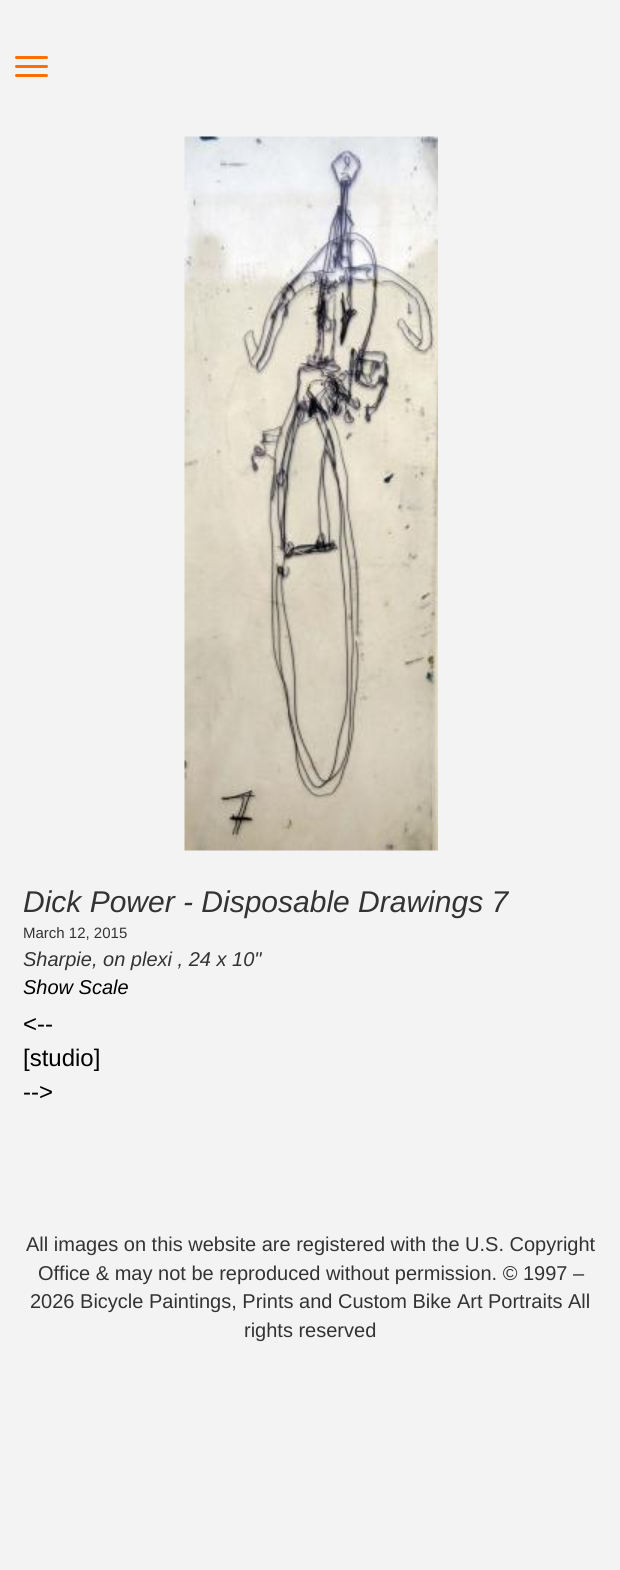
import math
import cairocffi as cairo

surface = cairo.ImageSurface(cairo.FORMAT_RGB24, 620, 1570)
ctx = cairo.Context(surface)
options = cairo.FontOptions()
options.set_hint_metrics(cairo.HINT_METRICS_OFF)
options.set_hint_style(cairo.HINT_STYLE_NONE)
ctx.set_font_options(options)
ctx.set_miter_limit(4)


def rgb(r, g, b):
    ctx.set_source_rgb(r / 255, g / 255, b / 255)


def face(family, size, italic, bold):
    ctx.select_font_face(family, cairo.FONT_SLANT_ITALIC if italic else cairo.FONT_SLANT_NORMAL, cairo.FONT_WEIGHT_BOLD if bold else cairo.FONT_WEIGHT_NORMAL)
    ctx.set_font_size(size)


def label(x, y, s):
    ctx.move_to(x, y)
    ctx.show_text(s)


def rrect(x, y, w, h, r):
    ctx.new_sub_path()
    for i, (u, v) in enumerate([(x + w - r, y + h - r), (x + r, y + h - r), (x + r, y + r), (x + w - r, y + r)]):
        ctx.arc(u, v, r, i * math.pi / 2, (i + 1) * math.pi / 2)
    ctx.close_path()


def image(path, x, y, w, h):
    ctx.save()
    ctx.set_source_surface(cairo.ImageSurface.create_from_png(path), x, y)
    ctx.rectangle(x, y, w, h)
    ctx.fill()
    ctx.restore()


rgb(243, 243, 243)
ctx.paint()
rgb(255, 111, 0)
rrect(15, 56, 33, 3, 1.5)
ctx.fill()
rrect(15, 65, 33, 3, 1.5)
ctx.fill()
rrect(15, 74, 33, 3, 1.5)
ctx.fill()
image('image0.png', 184, 136, 254, 715)
face('Liberation Sans', 30, 1, 0)
rgb(51, 51, 51)
label(23, 912, 'Dick Power - Disposable Drawings 7')
face('Liberation Sans', 15, 0, 0)
label(23, 938, 'March 12, 2015')
face('Liberation Sans', 20, 1, 0)
label(23, 966, 'Sharpie, on plexi , 24 x 10"')
rgb(0, 0, 0)
label(23, 994, 'Show Scale')
face('Liberation Sans', 24, 0, 0)
label(23, 1032, '<--')
label(23, 1066, '[studio]')
label(23, 1100, '-->')
face('Liberation Sans', 20, 0, 0)
rgb(51, 51, 51)
label(26, 1251, 'All images on this website are registered with the U.S. Copyright')
label(38, 1280, 'Office & may not be reproduced without permission. © 1997 –')
label(30, 1308, '2026 Bicycle Paintings, Prints and Custom Bike Art Portraits All')
label(244, 1337, 'rights reserved')
surface.write_to_png('render.png')
